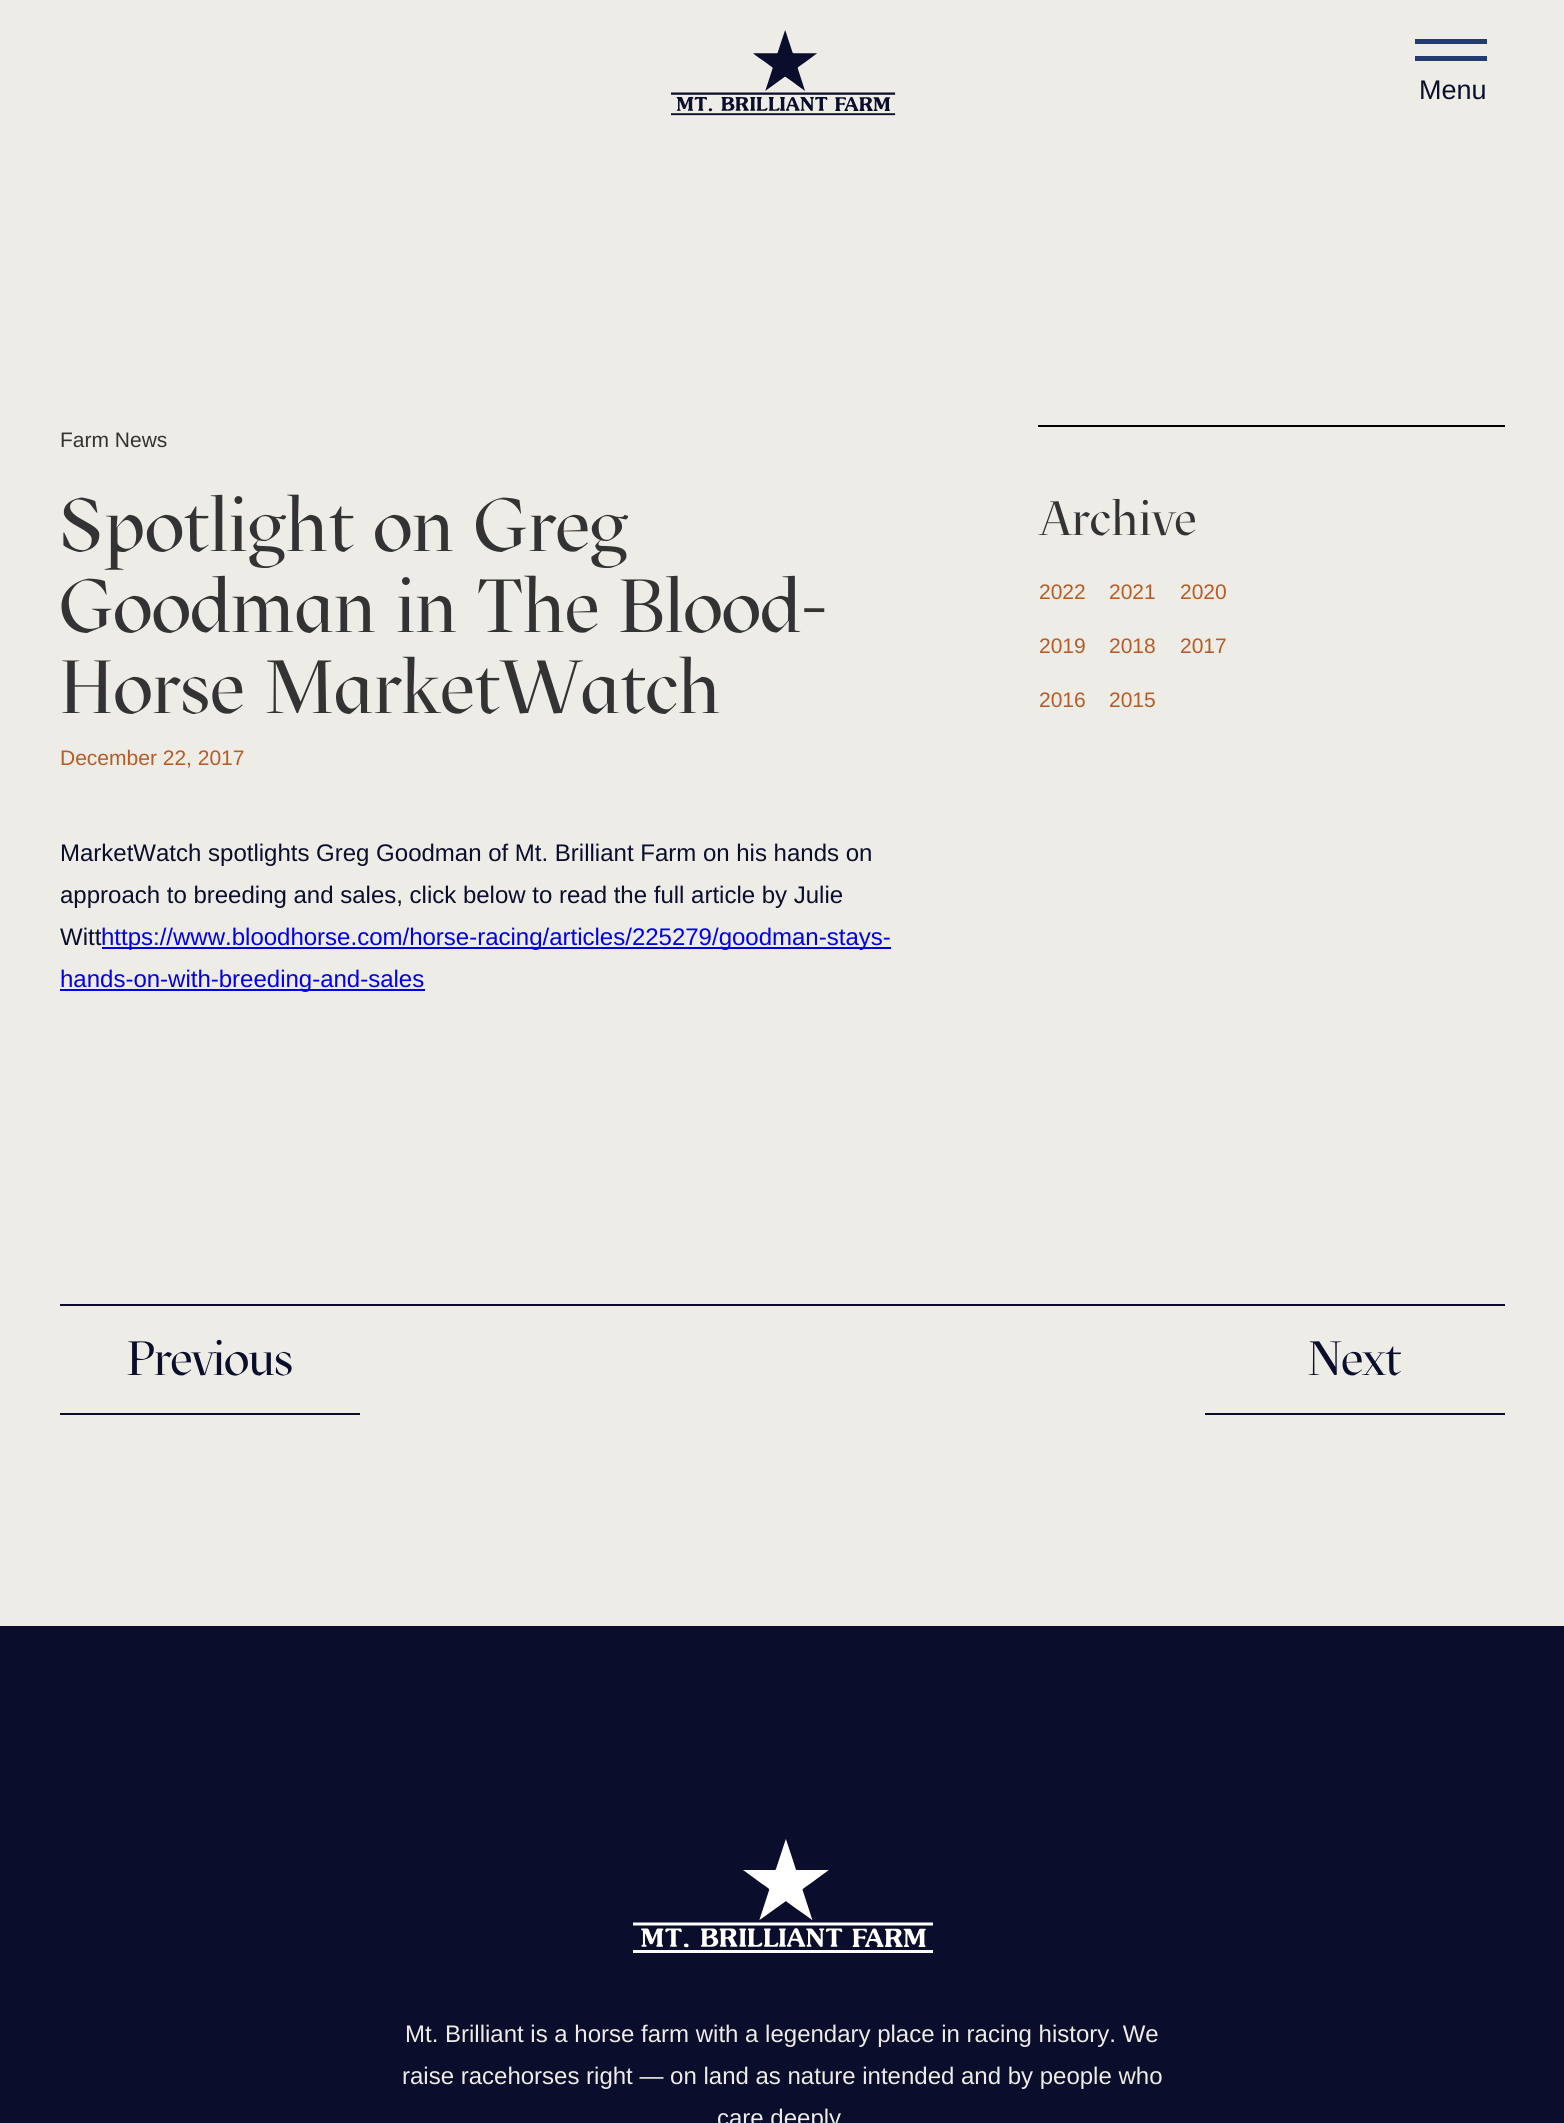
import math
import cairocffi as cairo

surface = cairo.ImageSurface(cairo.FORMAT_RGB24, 1564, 2123)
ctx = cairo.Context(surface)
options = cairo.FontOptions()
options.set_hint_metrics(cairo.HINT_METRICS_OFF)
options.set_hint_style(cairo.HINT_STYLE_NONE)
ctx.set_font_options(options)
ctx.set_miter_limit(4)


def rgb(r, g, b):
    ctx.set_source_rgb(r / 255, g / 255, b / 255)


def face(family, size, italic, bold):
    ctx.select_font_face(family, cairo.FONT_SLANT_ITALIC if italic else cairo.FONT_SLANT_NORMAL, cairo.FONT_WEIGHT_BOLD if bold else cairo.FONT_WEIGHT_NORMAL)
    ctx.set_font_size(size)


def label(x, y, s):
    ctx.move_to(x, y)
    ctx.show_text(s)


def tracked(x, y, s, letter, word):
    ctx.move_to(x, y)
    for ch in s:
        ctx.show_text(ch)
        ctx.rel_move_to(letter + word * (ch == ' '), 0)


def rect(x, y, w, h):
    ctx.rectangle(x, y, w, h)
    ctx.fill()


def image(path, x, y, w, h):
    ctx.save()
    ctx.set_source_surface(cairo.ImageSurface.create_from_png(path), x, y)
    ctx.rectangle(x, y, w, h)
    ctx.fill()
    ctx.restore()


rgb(237, 236, 231)
ctx.paint()
image('image0.png', 671, 30, 225, 86)
rgb(36, 59, 111)
rect(1415, 39, 72, 5)
rect(1415, 56, 72, 5)
face('Liberation Sans', 27, 0, 0)
rgb(10, 13, 43)
label(1419, 99, 'Menu')
face('Liberation Sans', 21, 0, 0)
rgb(51, 51, 51)
label(60, 447, 'Farm News')
face('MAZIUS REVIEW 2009', 75, 0, 0)
tracked(60, 551, 'Spotlight on Greg', 1.5, 0)
tracked(60, 632, 'Goodman in The Blood-', 1.5, 0)
tracked(60, 713, 'Horse MarketWatch', 1.5, 0)
face('Liberation Sans', 21, 0, 0)
rgb(185, 91, 37)
label(60, 765, 'December 22, 2017')
face('Liberation Sans', 24, 0, 0)
rgb(10, 13, 43)
label(60, 861, 'MarketWatch spotlights Greg Goodman of Mt. Brilliant Farm on his hands on')
label(60, 903, 'approach to breeding and sales, click below to read the full article by Julie')
label(60, 945, 'Witt')
rgb(0, 0, 238)
rect(102, 947, 789, 2)
label(101, 945, 'https://www.bloodhorse.com/horse-racing/articles/225279/goodman-stays-')
rect(60, 989, 365, 2)
label(60, 987, 'hands-on-with-breeding-and-sales')
rgb(0, 0, 0)
rect(1038, 425, 467, 2)
face('MAZIUS REVIEW 2009', 48, 0, 0)
rgb(51, 51, 51)
tracked(1039, 535, 'Archive', 1.5, 0)
face('Liberation Sans', 21, 0, 0)
rgb(185, 91, 37)
label(1039, 599, '2022')
label(1109, 599, '2021')
label(1180, 599, '2020')
label(1039, 653, '2019')
label(1109, 653, '2018')
label(1180, 653, '2017')
label(1039, 707, '2016')
label(1109, 707, '2015')
rgb(10, 13, 43)
rect(60, 1304, 1445, 2)
rect(60, 1413, 300, 2)
face('MAZIUS REVIEW 2009', 48, 0, 0)
label(126, 1375, 'Previous')
rect(1205, 1413, 300, 2)
label(1308, 1375, 'Next')
rect(0, 1626, 1564, 497)
image('image1.png', 633, 1839, 300, 114)
face('Liberation Sans', 24, 0, 0)
rgb(237, 236, 231)
label(405, 2042, 'Mt. Brilliant is a horse farm with a legendary place in racing history. We')
label(402, 2084, 'raise racehorses right — on land as nature intended and by people who')
label(717, 2126, 'care deeply')
surface.write_to_png('render.png')
